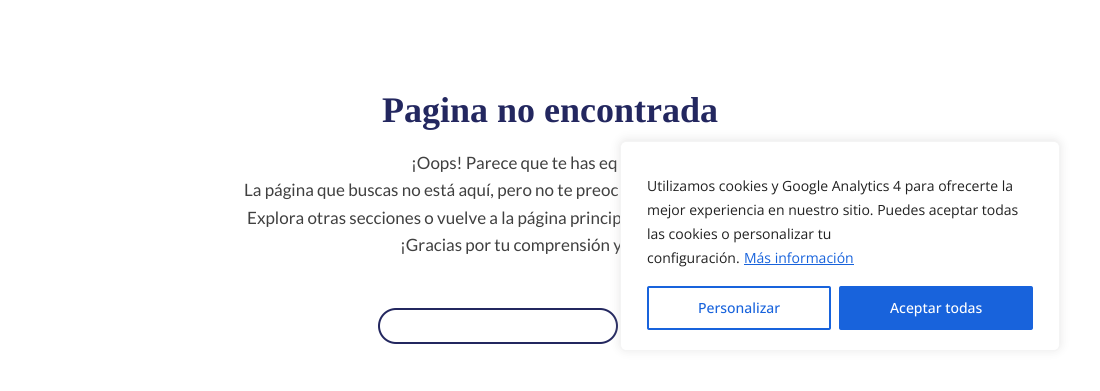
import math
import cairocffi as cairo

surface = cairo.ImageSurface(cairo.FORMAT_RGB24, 1100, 391)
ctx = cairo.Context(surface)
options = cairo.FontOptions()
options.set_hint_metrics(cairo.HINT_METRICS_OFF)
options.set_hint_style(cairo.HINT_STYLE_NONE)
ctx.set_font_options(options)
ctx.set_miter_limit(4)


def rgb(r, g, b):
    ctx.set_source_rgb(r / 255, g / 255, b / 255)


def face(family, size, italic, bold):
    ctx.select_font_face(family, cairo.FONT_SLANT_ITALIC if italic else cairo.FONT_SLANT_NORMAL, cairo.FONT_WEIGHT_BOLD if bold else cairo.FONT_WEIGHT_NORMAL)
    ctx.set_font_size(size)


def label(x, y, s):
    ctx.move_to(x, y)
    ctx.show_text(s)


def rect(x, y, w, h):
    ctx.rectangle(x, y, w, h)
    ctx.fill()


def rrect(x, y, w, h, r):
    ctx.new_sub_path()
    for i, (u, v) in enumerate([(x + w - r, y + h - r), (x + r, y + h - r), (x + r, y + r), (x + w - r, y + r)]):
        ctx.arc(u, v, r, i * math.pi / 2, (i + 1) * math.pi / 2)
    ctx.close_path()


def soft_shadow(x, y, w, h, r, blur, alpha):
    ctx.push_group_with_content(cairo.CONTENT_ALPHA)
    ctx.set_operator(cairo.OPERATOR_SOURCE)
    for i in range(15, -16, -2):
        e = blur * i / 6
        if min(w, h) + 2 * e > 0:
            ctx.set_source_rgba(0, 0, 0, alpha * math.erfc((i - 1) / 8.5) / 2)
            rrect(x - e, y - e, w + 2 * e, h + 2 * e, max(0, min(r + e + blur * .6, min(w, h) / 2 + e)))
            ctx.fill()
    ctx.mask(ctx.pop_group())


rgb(255, 255, 255)
ctx.paint()
face('Liberation Serif', 36, 0, 1)
rgb(35, 39, 95)
label(382, 122, 'Pagina no encontrada')
face('Lato', 17, 0, 0)
rgb(64, 64, 64)
label(411, 169, '¡Oops! Parece que te has eq')
label(244, 196, 'La página que buscas no está aquí, pero no te preoc')
label(247, 224, 'Explora otras secciones o vuelve a la página princip')
label(400, 251, '¡Gracias por tu comprensión y')
rrect(379, 309, 238, 34, 17)
rgb(35, 39, 95)
ctx.stroke()
rgb(172, 171, 171)
soft_shadow(620, 140, 440, 210, 6, 5, 0.3)
rgb(255, 255, 255)
rrect(620.5, 141.5, 439, 209, 5.5)
ctx.fill_preserve()
rgb(244, 244, 244)
ctx.set_line_width(1)
ctx.stroke()
face('Open Sans', 14, 0, 0)
rgb(33, 33, 33)
label(647, 191, 'Utilizamos cookies y Google Analytics 4 para ofrecerte la')
label(647, 215, 'mejor experiencia en nuestro sitio. Puedes aceptar todas')
label(647, 239, 'las cookies o personalizar tu')
label(647, 263, 'configuración.')
rgb(24, 99, 220)
label(744, 263, 'Más información')
rect(744, 264, 110, 1)
rrect(648, 287, 182, 42, 1)
ctx.set_line_width(2)
ctx.stroke()
face('Open Sans Medium', 14, 0, 0)
label(698, 313, 'Personalizar')
rrect(840, 287, 192, 42, 1)
ctx.fill_preserve()
ctx.stroke()
rgb(255, 255, 255)
label(890, 313, 'Aceptar todas')
surface.write_to_png('render.png')
